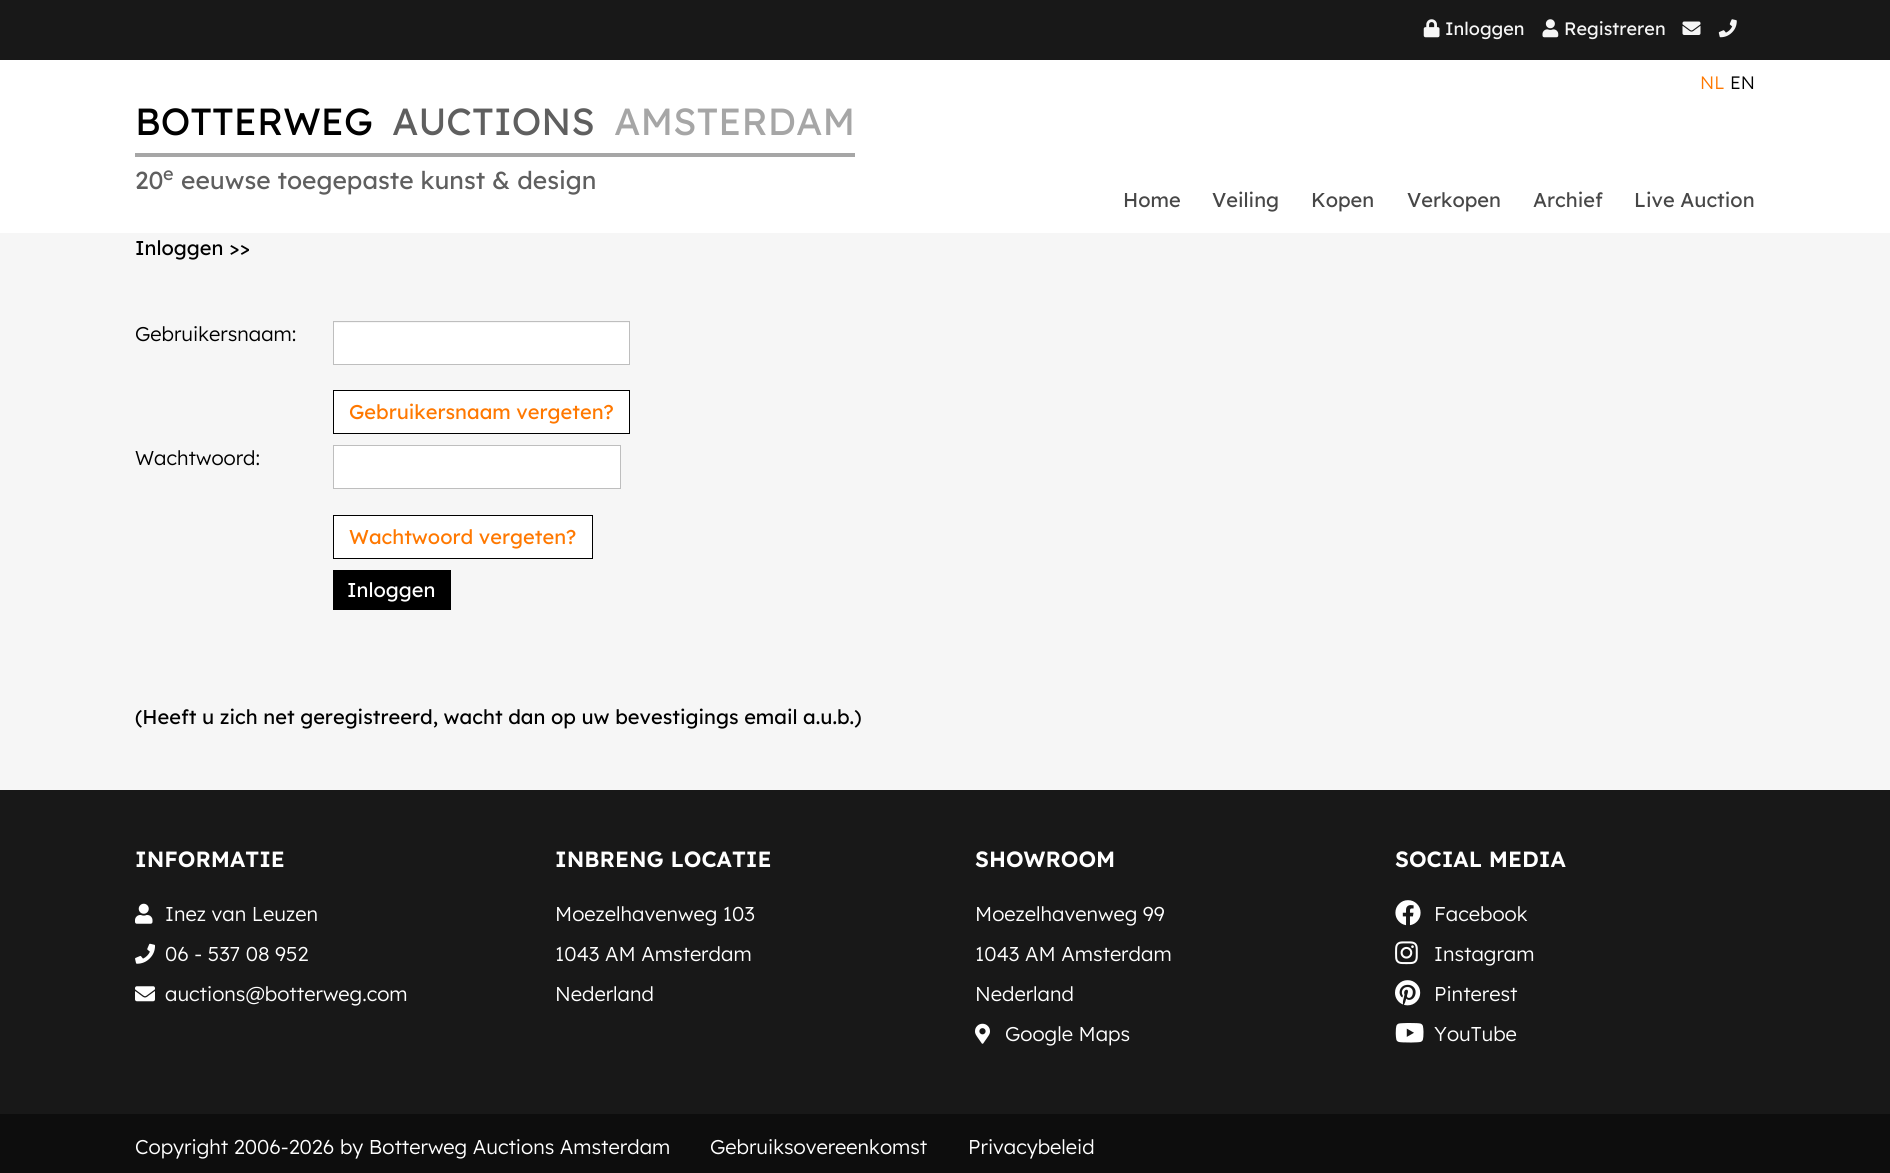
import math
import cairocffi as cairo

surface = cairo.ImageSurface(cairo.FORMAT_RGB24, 1890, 1173)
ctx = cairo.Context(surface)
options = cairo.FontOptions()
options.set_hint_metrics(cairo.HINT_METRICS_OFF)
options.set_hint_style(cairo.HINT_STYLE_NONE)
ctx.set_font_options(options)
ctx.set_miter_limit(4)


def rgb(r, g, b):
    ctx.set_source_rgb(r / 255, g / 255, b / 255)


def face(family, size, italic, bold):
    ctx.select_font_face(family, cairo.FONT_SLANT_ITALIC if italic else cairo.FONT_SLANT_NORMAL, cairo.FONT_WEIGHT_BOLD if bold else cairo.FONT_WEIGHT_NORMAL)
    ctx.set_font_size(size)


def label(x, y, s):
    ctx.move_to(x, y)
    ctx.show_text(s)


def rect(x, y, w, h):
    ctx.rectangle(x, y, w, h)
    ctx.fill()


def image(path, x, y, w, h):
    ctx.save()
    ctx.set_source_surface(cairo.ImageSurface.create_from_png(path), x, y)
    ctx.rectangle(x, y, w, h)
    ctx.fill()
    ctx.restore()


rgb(246, 246, 246)
ctx.paint()
rgb(255, 255, 255)
rect(0, 60, 1890, 173)
rgb(24, 24, 24)
rect(0, 0, 1890, 60)
image('image0.png', 1423, 19, 17, 19)
face('Lexend Deca', 18, 0, 0)
rgb(246, 246, 246)
label(1445, 35, 'Inloggen')
image('image1.png', 1542, 19, 17, 19)
label(1564, 35, 'Registreren')
image('image2.png', 1682, 21, 19, 14)
image('image3.png', 1718, 19, 19, 19)
face('Lexend Deca Light', 18, 0, 0)
rgb(255, 120, 0)
label(1700, 89, 'NL')
rgb(0, 0, 0)
label(1730, 89, 'EN')
rgb(166, 166, 166)
rect(135, 153, 720, 4)
face('Lexend Deca', 37.75, 0, 0)
rgb(0, 0, 0)
label(135, 135, 'BOTTERWEG')
rgb(95, 95, 95)
label(392, 135, 'AUCTIONS')
rgb(166, 166, 166)
label(614, 135, 'AMSTERDAM')
face('Lexend Deca', 24.6, 0, 0)
rgb(95, 95, 95)
label(135, 189, '20')
face('Lexend Deca', 18, 0, 0)
label(163, 180, 'e')
face('Lexend Deca', 24.6, 0, 0)
label(181, 189, 'eeuwse toegepaste kunst & design')
face('Lexend Deca', 20, 0, 0)
rgb(71, 71, 71)
label(1123, 207, 'Home')
label(1212, 207, 'Veiling')
label(1311, 207, 'Kopen')
label(1407, 207, 'Verkopen')
label(1533, 207, 'Archief')
label(1634, 207, 'Live Auction')
rgb(0, 0, 0)
label(135, 255, 'Inloggen >>')
face('Lexend Deca Light', 20, 0, 0)
label(135, 341, 'Gebruikersnaam:')
rgb(255, 255, 255)
rect(334, 323, 295, 41)
ctx.rectangle(333.5, 321.5, 296, 43)
rgb(190, 190, 190)
ctx.set_line_width(1)
ctx.stroke()
rgb(255, 255, 255)
ctx.rectangle(333.5, 390.5, 296, 43)
ctx.fill_preserve()
rgb(0, 0, 0)
ctx.stroke()
face('Lexend Deca', 20, 0, 0)
rgb(255, 120, 0)
label(349, 419, 'Gebruikersnaam vergeten?')
face('Lexend Deca Light', 20, 0, 0)
rgb(0, 0, 0)
label(135, 465, 'Wachtwoord:')
rgb(255, 255, 255)
ctx.rectangle(333.5, 445.5, 287, 43)
ctx.fill_preserve()
rgb(190, 190, 190)
ctx.stroke()
rgb(255, 255, 255)
ctx.rectangle(333.5, 515.5, 259, 43)
ctx.fill_preserve()
rgb(0, 0, 0)
ctx.stroke()
face('Lexend Deca', 20, 0, 0)
rgb(255, 120, 0)
label(349, 544, 'Wachtwoord vergeten?')
rgb(0, 0, 0)
rect(333, 570, 118, 40)
rgb(255, 255, 255)
label(347, 597, 'Inloggen')
rgb(0, 0, 0)
label(135, 724, '(Heeft u zich net geregistreerd, wacht dan op uw bevestigings email a.u.b.)')
rgb(24, 24, 24)
rect(0, 790, 1890, 324)
face('Lexend Deca SemiBold', 22, 0, 0)
rgb(255, 255, 255)
label(135, 867, 'INFORMATIE')
image('image4.png', 135, 903, 18, 21)
face('Lexend Deca Light', 20, 0, 0)
label(165, 921, 'Inez van Leuzen')
image('image5.png', 135, 943, 20, 21)
label(165, 961, '06 - 537 08 952')
image('image6.png', 135, 986, 20, 16)
label(165, 1001, 'auctions@botterweg.com')
face('Lexend Deca SemiBold', 22, 0, 0)
label(555, 867, 'INBRENG LOCATIE')
face('Lexend Deca Light', 20, 0, 0)
label(555, 921, 'Moezelhavenweg 103')
label(555, 961, '1043 AM Amsterdam')
label(555, 1001, 'Nederland')
face('Lexend Deca SemiBold', 22, 0, 0)
label(975, 867, 'SHOWROOM')
face('Lexend Deca Light', 20, 0, 0)
label(975, 921, 'Moezelhavenweg 99')
label(975, 961, '1043 AM Amsterdam')
label(975, 1001, 'Nederland')
image('image7.png', 975, 1023, 15, 21)
label(1005, 1041, 'Google Maps')
face('Lexend Deca SemiBold', 22, 0, 0)
label(1395, 867, 'SOCIAL MEDIA')
image('image8.png', 1395, 900, 26, 26)
face('Lexend Deca Light', 20, 0, 0)
label(1434, 921, 'Facebook')
image('image9.png', 1395, 941, 23, 24)
label(1434, 961, 'Instagram')
image('image10.png', 1395, 980, 26, 26)
label(1434, 1001, 'Pinterest')
image('image11.png', 1395, 1023, 29, 20)
label(1434, 1041, 'YouTube')
rgb(13, 13, 13)
rect(0, 1114, 1890, 59)
rgb(255, 255, 255)
label(135, 1154, 'Copyright 2006-2026 by Botterweg Auctions Amsterdam')
label(710, 1154, 'Gebruiksovereenkomst')
label(968, 1154, 'Privacybeleid')
surface.write_to_png('render.png')
